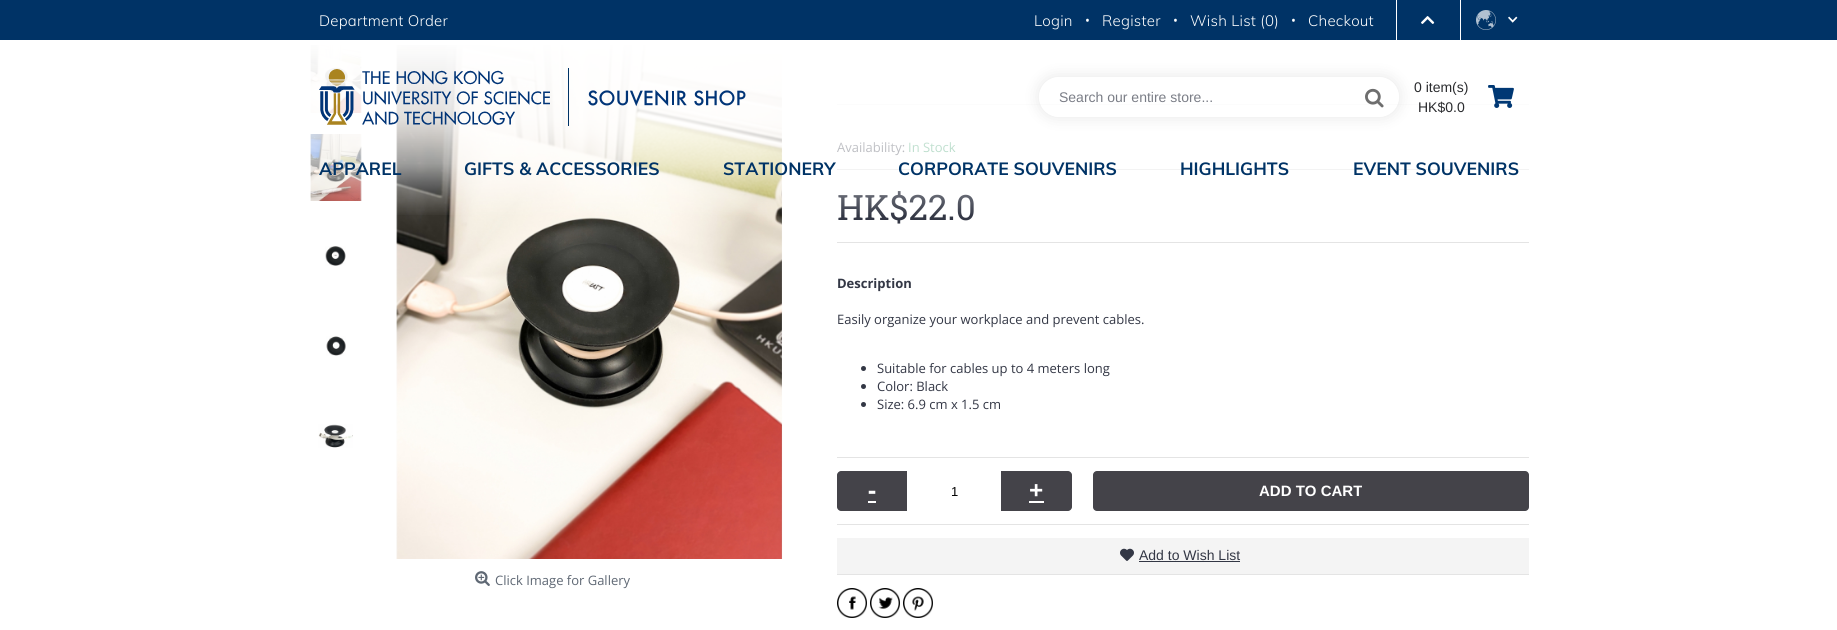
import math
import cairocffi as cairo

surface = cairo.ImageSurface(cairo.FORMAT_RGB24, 1837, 630)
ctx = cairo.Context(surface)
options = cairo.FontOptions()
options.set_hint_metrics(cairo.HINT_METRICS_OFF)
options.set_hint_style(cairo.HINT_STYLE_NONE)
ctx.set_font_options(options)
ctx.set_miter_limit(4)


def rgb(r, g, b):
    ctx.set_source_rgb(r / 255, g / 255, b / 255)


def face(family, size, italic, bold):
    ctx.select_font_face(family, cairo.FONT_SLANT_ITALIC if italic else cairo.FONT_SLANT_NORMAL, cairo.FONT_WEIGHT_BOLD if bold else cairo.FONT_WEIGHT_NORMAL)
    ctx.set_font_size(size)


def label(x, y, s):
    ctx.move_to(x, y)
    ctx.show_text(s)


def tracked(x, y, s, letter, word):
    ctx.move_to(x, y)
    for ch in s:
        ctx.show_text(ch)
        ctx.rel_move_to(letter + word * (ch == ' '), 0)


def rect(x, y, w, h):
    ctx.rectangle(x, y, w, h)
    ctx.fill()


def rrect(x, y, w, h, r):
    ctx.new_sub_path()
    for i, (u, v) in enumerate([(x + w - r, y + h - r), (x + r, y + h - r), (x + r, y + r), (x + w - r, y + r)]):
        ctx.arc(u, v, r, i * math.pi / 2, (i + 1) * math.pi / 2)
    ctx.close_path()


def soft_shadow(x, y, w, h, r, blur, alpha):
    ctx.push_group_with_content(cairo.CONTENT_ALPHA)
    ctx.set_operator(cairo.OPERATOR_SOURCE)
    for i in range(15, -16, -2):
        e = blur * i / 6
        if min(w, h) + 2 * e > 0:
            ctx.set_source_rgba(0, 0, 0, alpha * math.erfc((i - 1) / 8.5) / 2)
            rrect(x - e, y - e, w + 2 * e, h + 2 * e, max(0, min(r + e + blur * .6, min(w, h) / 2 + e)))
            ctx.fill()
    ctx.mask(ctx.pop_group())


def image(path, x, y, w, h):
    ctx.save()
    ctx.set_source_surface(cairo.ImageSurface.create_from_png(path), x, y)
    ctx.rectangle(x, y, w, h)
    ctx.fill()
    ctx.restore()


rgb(255, 255, 255)
ctx.paint()
rgb(0, 51, 102)
rect(0, 0, 1837, 40)
face('Muli Light', 15, 0, 0)
rgb(255, 255, 255)
tracked(319, 26, 'Department Order', 0.25, 0)
tracked(1034, 26, 'Login', 0.25, 0)
face('Open Sans', 13, 0, 0)
label(1085, 25, '•')
face('Muli Light', 15, 0, 0)
tracked(1102, 26, 'Register', 0.25, 0)
face('Open Sans', 13, 0, 0)
label(1173, 25, '•')
face('Muli Light', 15, 0, 0)
tracked(1190, 26, 'Wish List (0)', 0.25, 0)
face('Open Sans', 13, 0, 0)
label(1291, 25, '•')
face('Muli Light', 15, 0, 0)
tracked(1308, 26, 'Checkout', 0.25, 0)
rect(1460, 0, 1, 40)
rect(1396, 0, 1, 40)
image('image0.png', 1421, 16, 14, 8)
image('image1.png', 1476, 10, 20, 20)
image('image2.png', 1508, 16, 10, 7)
rgb(228, 228, 228)
rect(837, 104, 692, 1)
rect(837, 169, 692, 1)
face('Open Sans', 13, 0, 0)
rgb(51, 55, 69)
label(837, 152, 'Availability:')
rgb(51, 153, 101)
label(908, 152, 'In Stock')
face('Roboto Slab', 35, 0, 0)
rgb(51, 55, 69)
label(837, 220, 'HK$22.0')
image('image11.png', 310, 45, 52, 68)
image('image12.png', 310, 134, 52, 67)
image('image16.png', 396, 45, 387, 514)
gradient = cairo.LinearGradient(919, 40, 919, 217)
gradient.add_color_stop_rgba(0, 1, 1, 1, 1)
gradient.add_color_stop_rgba(0.45, 1, 1, 1, 0.85)
gradient.add_color_stop_rgba(0.7, 1, 1, 1, 0.6)
gradient.add_color_stop_rgba(1, 1, 1, 1, 0)
ctx.set_source(gradient)
rect(310, 45, 1219, 170)
rgb(0, 51, 102)
rect(568, 68, 1, 58)
image('image3.png', 319, 69, 231, 56)
image('image4.png', 588, 89, 158, 18)
ctx.save()
ctx.set_fill_rule(cairo.FILL_RULE_EVEN_ODD)
ctx.new_path()
ctx.move_to(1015, 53)
ctx.line_to(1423, 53)
ctx.line_to(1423, 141)
ctx.line_to(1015, 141)
ctx.close_path()
ctx.move_to(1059, 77)
ctx.line_to(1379, 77)
ctx.curve_to(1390, 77, 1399, 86, 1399, 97)
ctx.curve_to(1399, 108, 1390, 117, 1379, 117)
ctx.line_to(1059, 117)
ctx.curve_to(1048, 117, 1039, 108, 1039, 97)
ctx.curve_to(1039, 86, 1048, 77, 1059, 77)
ctx.close_path()
ctx.clip()
rgb(0, 0, 0)
soft_shadow(1039, 77, 360, 40, 20, 7.5, 0.1)
ctx.restore()
face('Liberation Sans', 14, 0, 0)
rgb(122, 125, 134)
label(1059, 102, 'Search our entire store...')
image('image5.png', 1365, 88, 19, 20)
rgb(42, 43, 46)
label(1414, 92, '0 item(s)')
label(1418, 112, 'HK$0.0')
image('image6.png', 1488, 85, 26, 23)
face('Muli', 17.6, 0, 1)
rgb(0, 51, 102)
label(319, 175, 'APPAREL')
label(464, 175, 'GIFTS & ACCESSORIES')
label(723, 175, 'STATIONERY')
label(898, 175, 'CORPORATE SOUVENIRS')
label(1180, 175, 'HIGHLIGHTS')
label(1353, 175, 'EVENT SOUVENIRS')
rgb(228, 228, 228)
rect(837, 242, 692, 1)
rect(837, 457, 692, 1)
face('Open Sans', 13, 0, 1)
rgb(51, 55, 69)
label(837, 288, 'Description')
face('Open Sans', 13, 0, 0)
label(837, 324, 'Easily organize your workplace and prevent cables.')
ctx.new_path()
ctx.arc(863.5, 368.5, 2.5, 0, 2 * math.pi)
ctx.fill()
label(877, 373, 'Suitable for cables up to 4 meters long')
ctx.new_path()
ctx.arc(863.5, 386.5, 2.5, 0, 2 * math.pi)
ctx.fill()
label(877, 391, 'Color: Black')
ctx.new_path()
ctx.arc(863.5, 404.5, 2.5, 0, 2 * math.pi)
ctx.fill()
label(877, 409, 'Size: 6.9 cm x 1.5 cm')
rgb(228, 228, 228)
rect(837, 524, 692, 1)
rgb(68, 67, 73)
ctx.new_path()
ctx.move_to(841, 471)
ctx.line_to(907, 471)
ctx.line_to(907, 511)
ctx.line_to(841, 511)
ctx.curve_to(839, 511, 837, 509, 837, 507)
ctx.line_to(837, 475)
ctx.curve_to(837, 473, 839, 471, 841, 471)
ctx.close_path()
ctx.fill()
face('Open Sans', 25, 0, 1)
rgb(255, 255, 255)
label(868, 499, '-')
rect(868, 501, 8, 2)
face('Liberation Sans', 13, 0, 0)
rgb(0, 0, 0)
label(951, 496, '1')
rgb(68, 67, 73)
ctx.new_path()
ctx.move_to(1001, 471)
ctx.line_to(1068, 471)
ctx.curve_to(1070, 471, 1072, 473, 1072, 475)
ctx.line_to(1072, 507)
ctx.curve_to(1072, 509, 1070, 511, 1068, 511)
ctx.line_to(1001, 511)
ctx.close_path()
ctx.fill()
face('Open Sans', 25, 0, 1)
rgb(255, 255, 255)
label(1029, 499, '+')
rect(1029, 501, 15, 2)
rgb(68, 67, 73)
rrect(1093, 471, 436, 40, 4)
ctx.fill()
face('Liberation Sans', 15, 0, 1)
rgb(255, 255, 255)
label(1259, 496, 'ADD TO CART')
rgb(244, 244, 244)
rect(837, 538, 692, 36)
rgb(228, 228, 228)
rect(837, 574, 692, 1)
image('image7.png', 1120, 548, 14, 13)
face('Liberation Sans', 14, 0, 0)
rgb(51, 55, 69)
label(1139, 560, 'Add to Wish List')
rect(1139, 561, 101, 1)
image('image8.png', 837, 588, 30, 30)
image('image9.png', 870, 588, 30, 30)
image('image10.png', 903, 588, 30, 30)
image('image13.png', 325, 246, 21, 20)
image('image14.png', 326, 336, 20, 20)
image('image15.png', 318, 424, 35, 24)
image('image17.png', 475, 571, 15, 15)
face('Open Sans', 13, 0, 0)
rgb(95, 104, 116)
label(495, 585, 'Click Image for Gallery')
surface.write_to_png('render.png')
